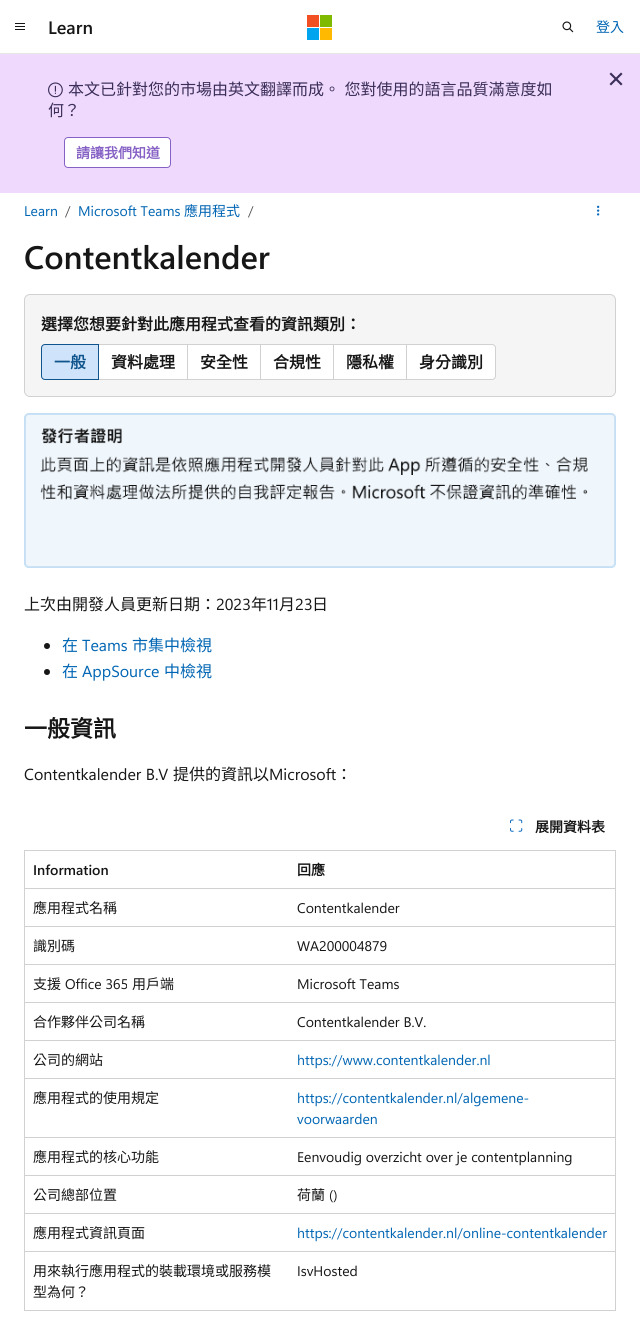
import math
import cairocffi as cairo

surface = cairo.ImageSurface(cairo.FORMAT_RGB24, 640, 1327)
ctx = cairo.Context(surface)
options = cairo.FontOptions()
options.set_hint_metrics(cairo.HINT_METRICS_OFF)
options.set_hint_style(cairo.HINT_STYLE_NONE)
ctx.set_font_options(options)
ctx.set_miter_limit(4)


def rgb(r, g, b):
    ctx.set_source_rgb(r / 255, g / 255, b / 255)


def face(family, size, italic, bold):
    ctx.select_font_face(family, cairo.FONT_SLANT_ITALIC if italic else cairo.FONT_SLANT_NORMAL, cairo.FONT_WEIGHT_BOLD if bold else cairo.FONT_WEIGHT_NORMAL)
    ctx.set_font_size(size)


def label(x, y, s):
    ctx.move_to(x, y)
    ctx.show_text(s)


def tracked(x, y, s, letter, word):
    ctx.move_to(x, y)
    for ch in s:
        ctx.show_text(ch)
        ctx.rel_move_to(letter + word * (ch == ' '), 0)


def rect(x, y, w, h):
    ctx.rectangle(x, y, w, h)
    ctx.fill()


def rrect(x, y, w, h, r):
    ctx.new_sub_path()
    for i, (u, v) in enumerate([(x + w - r, y + h - r), (x + r, y + h - r), (x + r, y + r), (x + w - r, y + r)]):
        ctx.arc(u, v, r, i * math.pi / 2, (i + 1) * math.pi / 2)
    ctx.close_path()


def image(path, x, y, w, h):
    ctx.save()
    ctx.set_source_surface(cairo.ImageSurface.create_from_png(path), x, y)
    ctx.rectangle(x, y, w, h)
    ctx.fill()
    ctx.restore()


rgb(255, 255, 255)
ctx.paint()
rgb(230, 230, 230)
rect(0, 53, 640, 1)
image('image0.png', 15, 23, 10, 7)
face('Segoe UI SemiBold', 18, 0, 0)
rgb(22, 22, 22)
label(48, 34, 'Learn')
rgb(242, 80, 34)
rect(307, 15, 12, 12)
rgb(127, 186, 0)
rect(320, 15, 12, 12)
rgb(0, 164, 239)
rect(307, 28, 12, 12)
rgb(255, 185, 0)
rect(320, 28, 12, 12)
image('image1.png', 562, 21, 12, 12)
face('Noto Sans CJK TC', 14, 0, 0)
rgb(0, 101, 179)
label(596, 32, '登入')
rgb(239, 217, 253)
rect(0, 54, 640, 139)
rgb(59, 46, 88)
ctx.new_path()
ctx.move_to(611, 72.5)
ctx.line_to(622.5, 84)
ctx.line_to(621, 85.5)
ctx.line_to(609.5, 74)
ctx.close_path()
ctx.fill()
ctx.new_path()
ctx.move_to(621, 72.5)
ctx.line_to(622.5, 74)
ctx.line_to(611, 85.5)
ctx.line_to(609.5, 84)
ctx.close_path()
ctx.fill()
image('image2.png', 48, 82, 15, 16)
face('Noto Sans CJK TC', 16, 0, 0)
tracked(68, 95, '本文已針對您的市場由英文翻譯而成。 您對使用的語言品質滿意度如', 0, 1)
label(48, 116, '何？')
rgb(255, 255, 255)
rrect(64.5, 137.5, 106, 30, 3.5)
ctx.fill_preserve()
rgb(134, 97, 197)
ctx.set_line_width(1)
ctx.stroke()
face('Noto Sans CJK TC', 14, 0, 1)
label(76, 158, '請讓我們知道')
face('Segoe UI', 14, 0, 0)
rgb(0, 101, 179)
label(24, 216, 'Learn')
rgb(80, 80, 80)
label(65, 216, '/')
rgb(0, 101, 179)
label(78, 216, 'Microsoft Teams')
face('Noto Sans CJK TC', 14, 0, 0)
label(184, 216, '應用程式')
face('Segoe UI', 14, 0, 0)
rgb(80, 80, 80)
label(248, 216, '/')
image('image3.png', 597, 205, 3, 11)
face('Segoe UI SemiBold', 32.5, 0, 0)
rgb(22, 22, 22)
label(24, 269, 'Contentkalender')
rgb(245, 245, 245)
rrect(24.5, 294.5, 591, 102, 5.5)
ctx.fill_preserve()
rgb(209, 209, 209)
ctx.stroke()
face('Noto Sans CJK TC', 16, 0, 1)
rgb(22, 22, 22)
label(41, 330, '選擇您想要針對此應用程式查看的資訊類別：')
rgb(255, 255, 255)
ctx.rectangle(98.5, 344.5, 89, 35)
ctx.fill_preserve()
rgb(209, 209, 209)
ctx.stroke()
rgb(207, 228, 250)
ctx.new_path()
ctx.move_to(45, 344.5)
ctx.line_to(98.5, 344.5)
ctx.line_to(98.5, 379.5)
ctx.line_to(45, 379.5)
ctx.curve_to(43, 379.5, 41.5, 378, 41.5, 376)
ctx.line_to(41.5, 348)
ctx.curve_to(41.5, 346, 43, 344.5, 45, 344.5)
ctx.close_path()
ctx.fill_preserve()
rgb(15, 84, 140)
ctx.stroke()
label(54, 368, '一般')
rgb(22, 22, 22)
label(111, 368, '資料處理')
rgb(255, 255, 255)
ctx.rectangle(187.5, 344.5, 73, 35)
ctx.fill_preserve()
rgb(209, 209, 209)
ctx.stroke()
rgb(22, 22, 22)
label(200, 368, '安全性')
rgb(255, 255, 255)
ctx.rectangle(260.5, 344.5, 73, 35)
ctx.fill_preserve()
rgb(209, 209, 209)
ctx.stroke()
rgb(22, 22, 22)
label(273, 368, '合規性')
rgb(255, 255, 255)
ctx.rectangle(333.5, 344.5, 73, 35)
ctx.fill_preserve()
rgb(209, 209, 209)
ctx.stroke()
rgb(22, 22, 22)
label(346, 368, '隱私權')
rgb(255, 255, 255)
ctx.new_path()
ctx.move_to(406.5, 344.5)
ctx.line_to(492, 344.5)
ctx.curve_to(494, 344.5, 495.5, 346, 495.5, 348)
ctx.line_to(495.5, 376)
ctx.curve_to(495.5, 378, 494, 379.5, 492, 379.5)
ctx.line_to(406.5, 379.5)
ctx.close_path()
ctx.fill_preserve()
rgb(209, 209, 209)
ctx.stroke()
rgb(22, 22, 22)
label(419, 368, '身分識別')
image('image4.png', 24, 413, 592, 155)
face('Noto Sans CJK TC', 16, 0, 0)
label(24, 610, '上次由開發人員更新日期：')
face('Segoe UI', 16, 0, 0)
label(216, 610, '2023')
face('Noto Sans CJK TC', 16, 0, 0)
label(251, 610, '年')
face('Segoe UI', 16, 0, 0)
label(267, 610, '11')
face('Noto Sans CJK TC', 16, 0, 0)
label(279, 610, '月')
face('Segoe UI', 16, 0, 0)
label(295, 610, '23')
face('Noto Sans CJK TC', 16, 0, 0)
label(312, 610, '日')
ctx.new_path()
ctx.arc(47, 646, 3, 0, 2 * math.pi)
ctx.fill()
rgb(0, 101, 179)
label(62, 651, '在')
face('Segoe UI', 16, 0, 0)
label(82, 651, 'Teams')
face('Noto Sans CJK TC', 16, 0, 0)
label(132, 651, '市集中檢視')
rgb(22, 22, 22)
ctx.new_path()
ctx.arc(47, 672, 3, 0, 2 * math.pi)
ctx.fill()
rgb(0, 101, 179)
label(62, 677, '在')
face('Segoe UI', 16, 0, 0)
label(82, 677, 'AppSource')
face('Noto Sans CJK TC', 16, 0, 0)
label(164, 677, '中檢視')
face('Noto Sans CJK TC', 23, 0, 1)
rgb(22, 22, 22)
label(24, 737, '一般資訊')
face('Segoe UI', 16, 0, 0)
label(24, 780, 'Contentkalender B.V')
face('Noto Sans CJK TC', 16, 0, 0)
label(173, 780, '提供的資訊以')
face('Segoe UI', 16, 0, 0)
label(269, 780, 'Microsoft')
face('Noto Sans CJK TC', 16, 0, 0)
label(336, 780, '：')
image('image5.png', 510, 819, 13, 13)
face('Noto Sans CJK TC', 14, 0, 1)
label(535, 832, '展開資料表')
rgb(209, 209, 209)
rect(24, 850, 592, 1)
rect(615, 850, 1, 461)
rect(24, 1310, 592, 1)
rect(24, 850, 1, 461)
face('Segoe UI SemiBold', 14, 0, 0)
rgb(22, 22, 22)
label(33, 875, 'Information')
face('Noto Sans CJK TC', 14, 0, 1)
label(297, 875, '回應')
face('Noto Sans CJK TC', 14, 0, 0)
label(33, 913, '應用程式名稱')
rgb(209, 209, 209)
rect(24, 888, 592, 1)
face('Segoe UI', 14, 0, 0)
rgb(22, 22, 22)
label(297, 913, 'Contentkalender')
face('Noto Sans CJK TC', 14, 0, 0)
label(33, 951, '識別碼')
rgb(209, 209, 209)
rect(24, 926, 592, 1)
face('Segoe UI', 14, 0, 0)
rgb(22, 22, 22)
label(297, 951, 'WA200004879')
face('Noto Sans CJK TC', 14, 0, 0)
label(33, 989, '支援')
face('Segoe UI', 14, 0, 0)
label(65, 989, 'Office 365')
face('Noto Sans CJK TC', 14, 0, 0)
label(132, 989, '用戶端')
rgb(209, 209, 209)
rect(24, 964, 592, 1)
face('Segoe UI', 14, 0, 0)
rgb(22, 22, 22)
label(297, 989, 'Microsoft Teams')
face('Noto Sans CJK TC', 14, 0, 0)
label(33, 1027, '合作夥伴公司名稱')
rgb(209, 209, 209)
rect(24, 1002, 592, 1)
face('Segoe UI', 14, 0, 0)
rgb(22, 22, 22)
label(297, 1027, 'Contentkalender B.V.')
face('Noto Sans CJK TC', 14, 0, 0)
label(33, 1065, '公司的網站')
rgb(209, 209, 209)
rect(24, 1040, 592, 1)
face('Segoe UI', 14, 0, 0)
rgb(0, 101, 179)
label(297, 1065, 'https://www.contentkalender.nl')
face('Noto Sans CJK TC', 14, 0, 0)
rgb(22, 22, 22)
label(33, 1103, '應用程式的使用規定')
rgb(209, 209, 209)
rect(24, 1078, 592, 1)
face('Segoe UI', 14, 0, 0)
rgb(0, 101, 179)
label(297, 1103, 'https://contentkalender.nl/algemene-')
label(297, 1124, 'voorwaarden')
face('Noto Sans CJK TC', 14, 0, 0)
rgb(22, 22, 22)
label(33, 1162, '應用程式的核心功能')
rgb(209, 209, 209)
rect(24, 1137, 592, 1)
face('Segoe UI', 14, 0, 0)
rgb(22, 22, 22)
label(297, 1162, 'Eenvoudig overzicht over je contentplanning')
face('Noto Sans CJK TC', 14, 0, 0)
label(33, 1200, '公司總部位置')
rgb(209, 209, 209)
rect(24, 1175, 592, 1)
rgb(22, 22, 22)
label(297, 1200, '荷蘭')
face('Segoe UI', 14, 0, 0)
label(329, 1200, '()')
face('Noto Sans CJK TC', 14, 0, 0)
label(33, 1238, '應用程式資訊頁面')
rgb(209, 209, 209)
rect(24, 1213, 592, 1)
face('Segoe UI', 14, 0, 0)
rgb(0, 101, 179)
label(297, 1238, 'https://contentkalender.nl/online-contentkalender')
face('Noto Sans CJK TC', 14, 0, 0)
rgb(22, 22, 22)
label(33, 1276, '用來執行應用程式的裝載環境或服務模')
label(33, 1297, '型為何？')
rgb(209, 209, 209)
rect(24, 1251, 592, 1)
face('Segoe UI', 14, 0, 0)
rgb(22, 22, 22)
label(297, 1276, 'IsvHosted')
surface.write_to_png('render.png')
